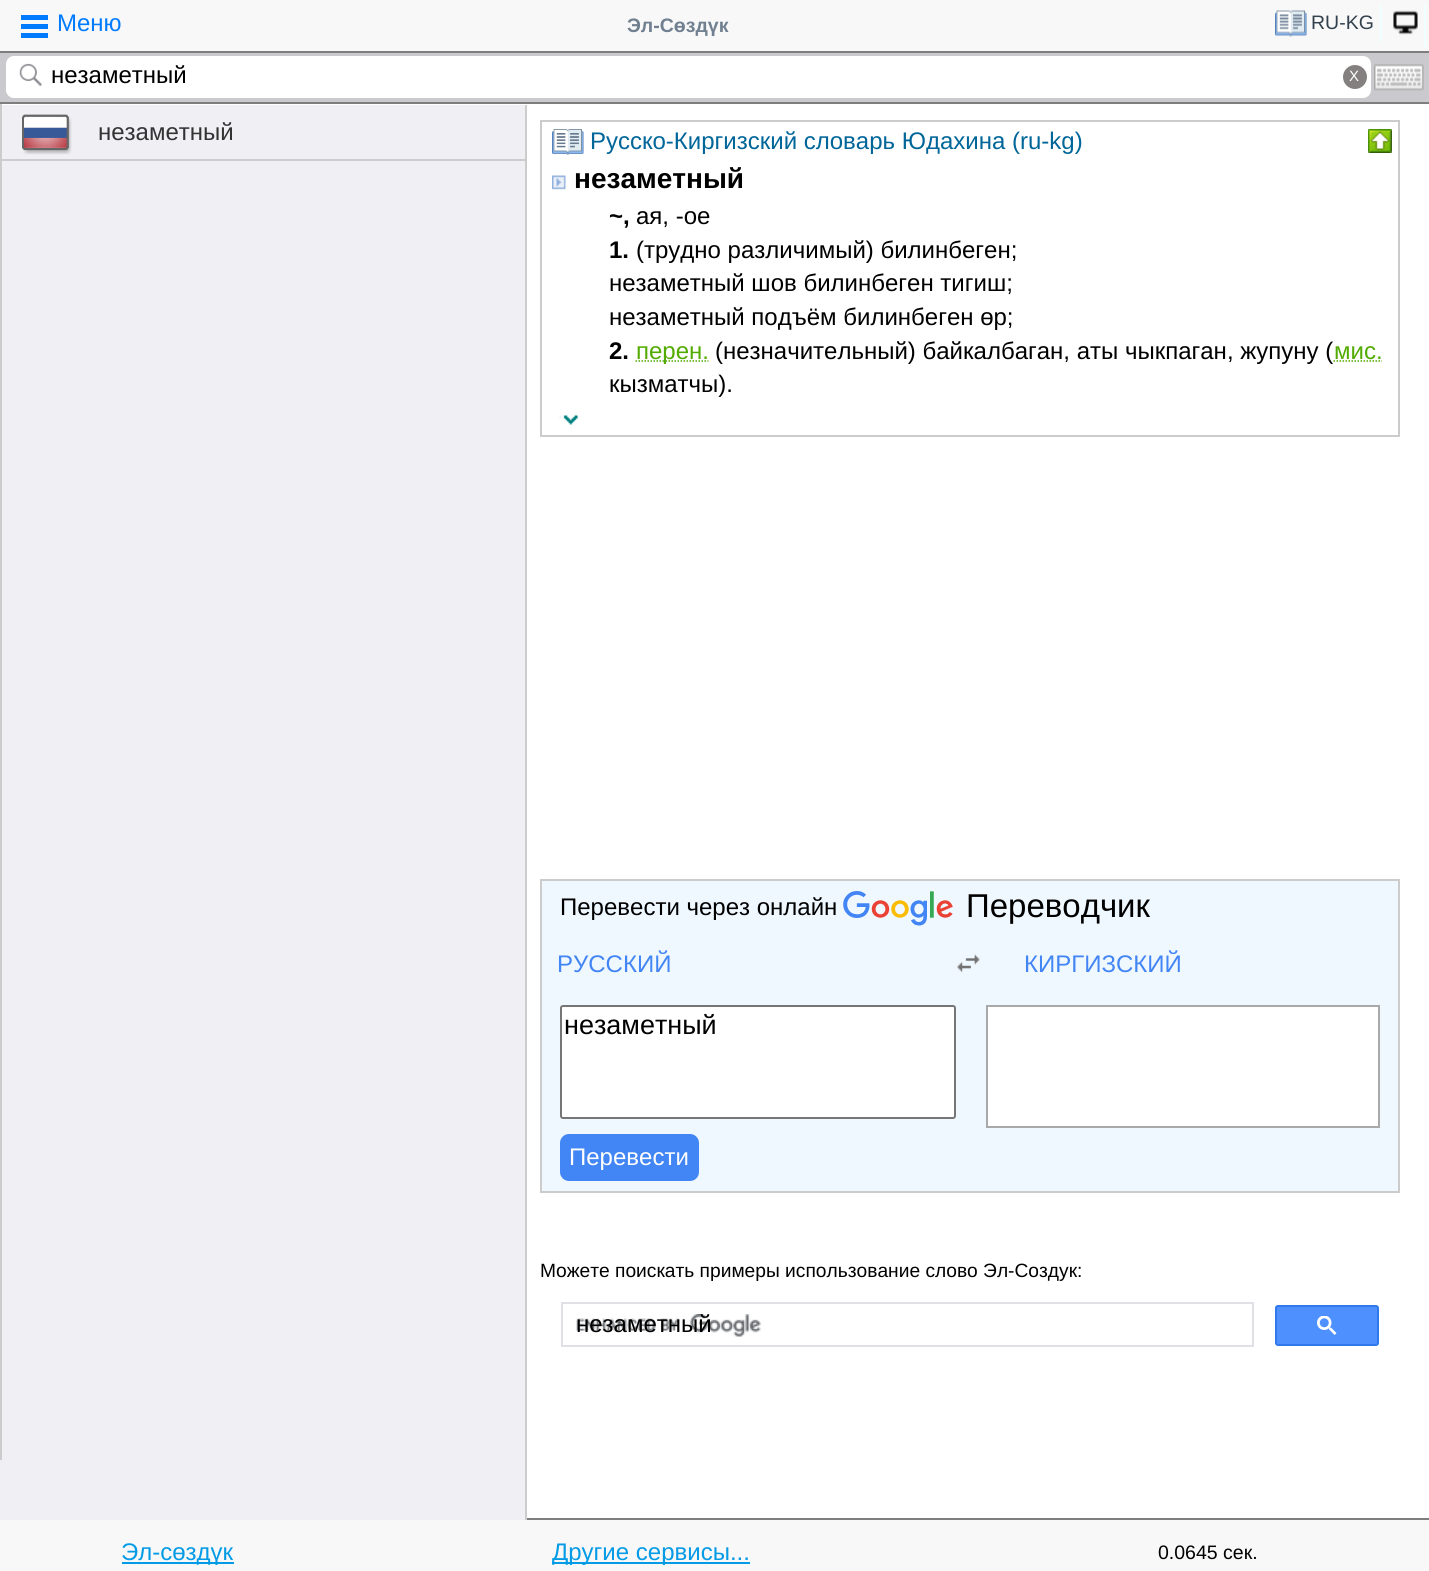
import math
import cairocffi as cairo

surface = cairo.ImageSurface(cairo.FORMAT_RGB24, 1429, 1571)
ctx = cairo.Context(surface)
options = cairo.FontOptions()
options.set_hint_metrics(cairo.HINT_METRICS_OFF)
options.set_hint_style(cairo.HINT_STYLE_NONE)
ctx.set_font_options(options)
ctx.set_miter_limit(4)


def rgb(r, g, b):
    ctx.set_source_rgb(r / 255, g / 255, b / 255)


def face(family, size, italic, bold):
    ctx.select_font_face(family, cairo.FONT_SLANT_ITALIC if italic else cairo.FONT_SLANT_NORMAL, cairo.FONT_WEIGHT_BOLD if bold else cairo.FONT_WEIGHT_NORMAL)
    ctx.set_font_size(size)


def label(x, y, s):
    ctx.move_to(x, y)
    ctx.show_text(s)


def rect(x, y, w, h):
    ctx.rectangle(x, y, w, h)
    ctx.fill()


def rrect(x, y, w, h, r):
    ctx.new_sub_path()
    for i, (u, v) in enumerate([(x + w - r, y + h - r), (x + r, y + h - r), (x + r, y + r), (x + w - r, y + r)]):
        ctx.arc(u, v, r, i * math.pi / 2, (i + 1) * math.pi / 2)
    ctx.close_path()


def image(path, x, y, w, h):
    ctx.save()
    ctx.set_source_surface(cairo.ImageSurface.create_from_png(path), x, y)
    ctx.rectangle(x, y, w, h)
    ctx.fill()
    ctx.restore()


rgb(255, 255, 255)
ctx.paint()
rgb(248, 248, 248)
rect(0, 0, 1429, 51)
rgb(126, 126, 126)
rect(0, 51, 1429, 2)
rgb(0, 123, 255)
rect(21, 15, 27, 5)
rect(21, 24, 27, 5)
rect(21, 33, 27, 5)
face('Liberation Sans', 24, 0, 0)
label(57, 31, 'Меню')
face('Liberation Sans', 19.5, 0, 1)
rgb(112, 128, 144)
label(627, 32, 'Эл-Сөздүк')
rgb(240, 255, 255)
rect(1380, 5, 2, 37)
image('image0.png', 1275, 10, 32, 27)
face('Liberation Sans', 19.5, 0, 0)
rgb(51, 64, 77)
label(1311, 29, 'RU-KG')
rgb(240, 255, 255)
rect(1424, 5, 2, 42)
image('image1.png', 1393, 10, 25, 25)
rgb(201, 201, 206)
rect(0, 53, 1429, 49)
rgb(126, 126, 126)
rect(0, 102, 1429, 2)
rgb(255, 255, 255)
rrect(6, 56, 1365, 42, 8)
ctx.fill()
image('image2.png', 19, 63, 23, 24)
face('Liberation Sans', 24, 0, 0)
rgb(0, 0, 0)
label(51, 83, 'незаметный')
rgb(132, 128, 128)
ctx.new_path()
ctx.arc(1355, 77, 12, 0, 2 * math.pi)
ctx.fill()
face('Liberation Sans', 15, 0, 0)
rgb(255, 255, 255)
label(1349, 81, 'X')
image('image3.png', 1374, 64, 50, 27)
rgb(239, 239, 244)
rect(0, 105, 525, 1415)
rgb(204, 204, 204)
rect(0, 159, 525, 2)
rect(0, 104, 2, 1356)
rect(525, 105, 2, 1415)
image('image4.png', 22, 114, 50, 41)
face('Liberation Sans', 24, 0, 0)
rgb(51, 51, 51)
label(98, 140, 'незаметный')
ctx.rectangle(541, 121, 858, 315)
rgb(204, 204, 204)
ctx.stroke()
image('image5.png', 552, 129, 32, 26)
rgb(0, 102, 153)
label(590, 149, 'Русско-Киргизский словарь Юдахина (ru-kg)')
image('image6.png', 1368, 129, 24, 24)
image('image7.png', 552, 175, 14, 15)
face('Liberation Sans', 28, 0, 1)
rgb(0, 0, 0)
label(574, 188, 'незаметный')
face('Liberation Sans', 24, 0, 1)
label(609, 224, '~,')
face('Liberation Sans', 24, 0, 0)
label(636, 224, 'ая, -ое')
face('Liberation Sans', 24, 0, 1)
label(609, 258, '1.')
face('Liberation Sans', 24, 0, 0)
label(636, 258, '(трудно различимый) билинбеген;')
label(609, 291, 'незаметный шов билинбеген тигиш;')
label(609, 325, 'незаметный подъём билинбеген өр;')
face('Liberation Sans', 24, 0, 1)
label(609, 359, '2.')
ctx.new_path()
ctx.move_to(635.5, 361)
ctx.line_to(708.5, 361)
rgb(82, 171, 0)
ctx.set_line_width(1.5)
ctx.set_dash([1.5, 1.5])
ctx.stroke()
face('Liberation Sans', 24, 0, 0)
label(636, 359, 'перен.')
rgb(0, 0, 0)
label(715, 359, '(незначительный) байкалбаган, аты чыкпаган, жупуну (')
rgb(82, 171, 0)
label(1334, 359, 'мис.')
ctx.new_path()
ctx.move_to(1333.5, 361)
ctx.line_to(1382, 361)
ctx.stroke()
rgb(0, 0, 0)
label(609, 392, 'кызматчы).')
image('image8.png', 559, 415, 19, 10)
rgb(240, 248, 255)
ctx.rectangle(541, 880, 858, 312)
ctx.fill_preserve()
rgb(204, 204, 204)
ctx.set_line_width(2)
ctx.set_dash([])
ctx.stroke()
rgb(0, 0, 0)
label(560, 915, 'Перевести через онлайн')
image('image9.png', 843, 891, 110, 35)
face('Liberation Sans', 33, 0, 0)
label(966, 917, 'Переводчик')
face('Liberation Sans', 24, 0, 0)
rgb(66, 133, 244)
label(557, 972, 'РУССКИЙ')
image('image10.png', 957, 954, 23, 19)
label(1024, 972, 'КИРГИЗСКИЙ')
rgb(255, 255, 255)
rrect(561, 1006, 394, 112, 2)
ctx.fill_preserve()
rgb(118, 118, 118)
ctx.stroke()
face('Liberation Sans', 27, 0, 0)
rgb(0, 0, 0)
label(564, 1034, 'незаметный')
rgb(255, 255, 255)
ctx.rectangle(987, 1006, 392, 121)
ctx.fill_preserve()
rgb(169, 169, 169)
ctx.stroke()
rgb(66, 133, 244)
rrect(560, 1134, 139, 47, 9)
ctx.fill()
face('Liberation Sans', 24, 0, 0)
rgb(255, 255, 255)
label(569, 1165, 'Перевести')
face('Liberation Sans', 19.2, 0, 0)
rgb(0, 0, 0)
label(540, 1277, 'Можете поискать примеры использование слово Эл-Создук:')
ctx.rectangle(562, 1303, 691, 43)
rgb(223, 225, 229)
ctx.stroke()
image('image11.png', 576, 1314, 185, 23)
face('Liberation Sans', 24, 0, 0)
rgb(0, 0, 0)
label(576, 1332, 'незаметный')
rgb(77, 144, 254)
rrect(1276, 1306, 102, 39, 2)
ctx.fill_preserve()
rgb(48, 121, 237)
ctx.stroke()
image('image12.png', 1317, 1316, 20, 19)
rgb(248, 248, 248)
rect(0, 1520, 1429, 51)
rgb(126, 126, 126)
rect(527, 1518, 902, 2)
rgb(3, 155, 229)
rect(122, 1562, 112, 2)
label(121, 1560, 'Эл-сөздүк')
rect(552, 1562, 198, 2)
label(552, 1560, 'Другие сервисы...')
face('Liberation Sans', 19.5, 0, 0)
rgb(0, 0, 0)
label(1158, 1559, '0.0645 сек.')
surface.write_to_png('render.png')
